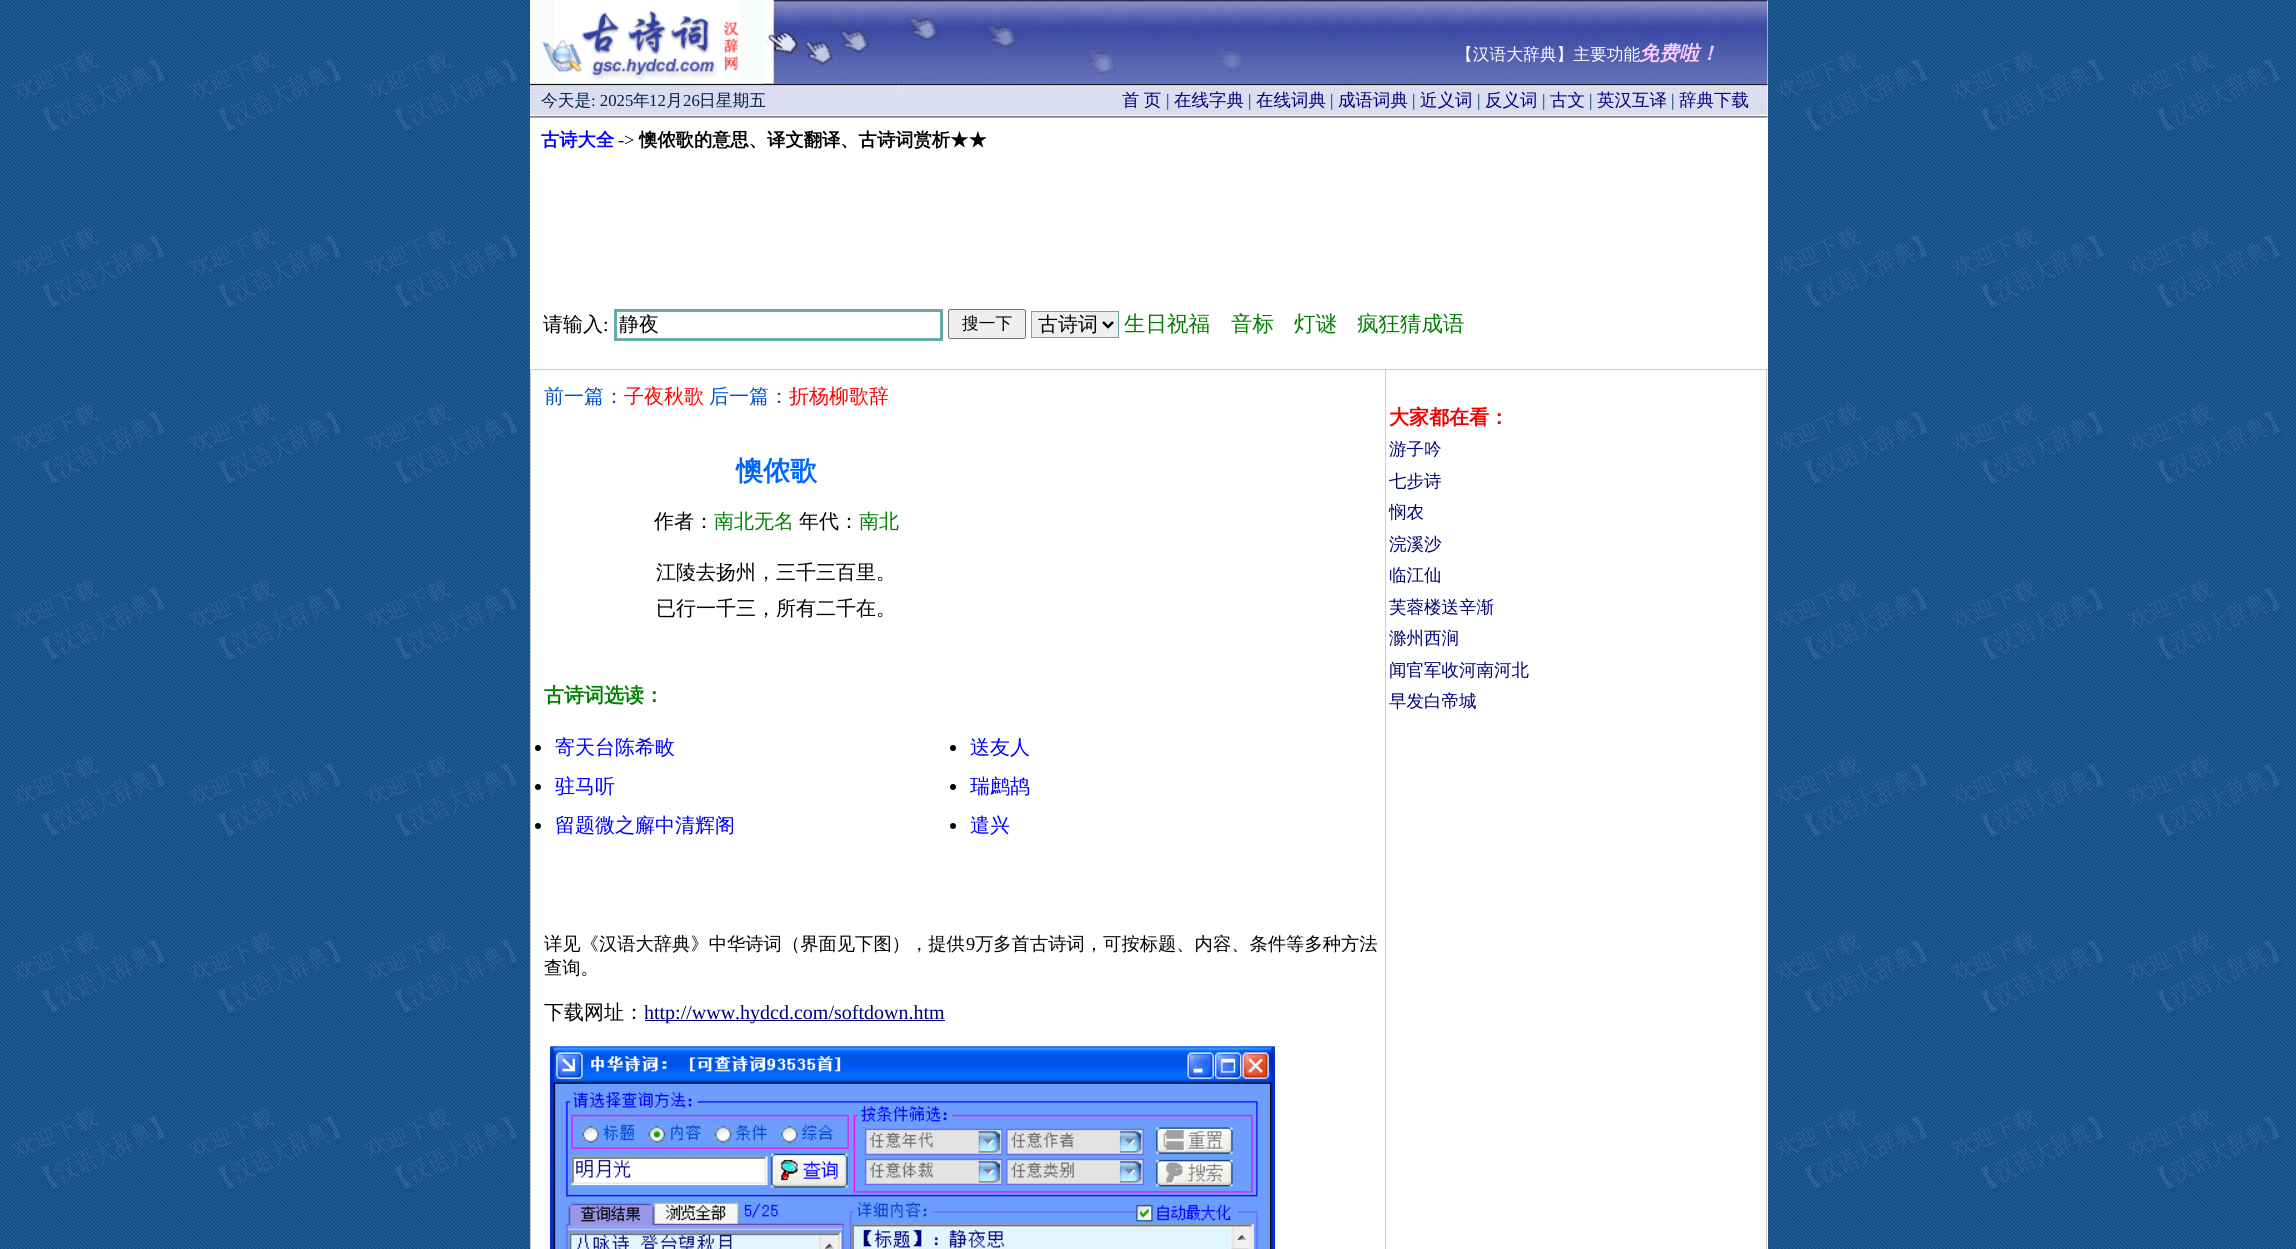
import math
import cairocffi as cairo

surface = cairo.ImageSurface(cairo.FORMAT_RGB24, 2296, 1249)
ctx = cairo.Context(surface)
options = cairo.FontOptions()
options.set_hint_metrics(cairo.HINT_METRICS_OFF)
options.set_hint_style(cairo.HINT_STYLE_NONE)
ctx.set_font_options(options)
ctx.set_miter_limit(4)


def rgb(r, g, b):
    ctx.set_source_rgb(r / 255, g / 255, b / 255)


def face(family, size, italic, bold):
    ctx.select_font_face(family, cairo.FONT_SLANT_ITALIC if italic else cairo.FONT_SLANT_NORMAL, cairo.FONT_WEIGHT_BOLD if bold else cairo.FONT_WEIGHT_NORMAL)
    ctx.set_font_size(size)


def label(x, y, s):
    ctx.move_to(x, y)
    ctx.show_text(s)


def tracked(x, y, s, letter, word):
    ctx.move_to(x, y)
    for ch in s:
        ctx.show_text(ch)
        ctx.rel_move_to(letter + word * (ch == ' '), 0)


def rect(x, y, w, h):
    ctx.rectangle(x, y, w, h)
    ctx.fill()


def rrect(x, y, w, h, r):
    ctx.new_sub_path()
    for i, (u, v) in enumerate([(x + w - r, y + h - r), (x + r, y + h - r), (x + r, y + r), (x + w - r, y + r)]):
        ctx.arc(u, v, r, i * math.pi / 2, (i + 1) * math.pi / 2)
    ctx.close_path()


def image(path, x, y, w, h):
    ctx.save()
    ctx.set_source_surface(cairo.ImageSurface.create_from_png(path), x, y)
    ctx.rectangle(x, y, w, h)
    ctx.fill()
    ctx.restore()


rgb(255, 255, 255)
ctx.paint()
image('image0.png', 0, 0, 2296, 1249)
rgb(255, 255, 255)
rect(530, 0, 1238, 1249)
image('image2.png', 765, 0, 1003, 84)
image('image3.png', 530, 83, 369, 35)
image('image1.png', 530, 0, 234, 84)
face('WenQuanYi Zen Hei Medium', 16.75, 0, 0)
label(1456, 60, '【汉语大辞典】主要功能')
face('WenQuanYi Zen Hei', 20, 1, 1)
rgb(255, 204, 255)
label(1639, 60, '免费啦！')
face('WenQuanYi Zen Hei Medium', 16.75, 0, 0)
rgb(0, 34, 68)
label(541, 106, '今天是')
face('Liberation Serif', 16.75, 0, 0)
label(591, 106, ': 2025')
face('WenQuanYi Zen Hei Medium', 16.75, 0, 0)
label(633, 106, '年')
face('Liberation Serif', 16.75, 0, 0)
label(649, 106, '12')
face('WenQuanYi Zen Hei Medium', 16.75, 0, 0)
label(666, 106, '月')
face('Liberation Serif', 16.75, 0, 0)
label(683, 106, '26')
face('WenQuanYi Zen Hei Medium', 16.75, 0, 0)
label(699, 106, '日星期五')
image('image4.png', 898, 83, 870, 35)
face('WenQuanYi Zen Hei Medium', 17.5, 0, 0)
rgb(0, 0, 119)
tracked(1122, 106, '首 页', 0, -1)
face('Liberation Serif', 17.5, 0, 0)
rgb(0, 51, 102)
label(1166, 106, '|')
face('WenQuanYi Zen Hei Medium', 17.5, 0, 0)
rgb(0, 0, 119)
label(1174, 106, '在线字典')
face('Liberation Serif', 17.5, 0, 0)
rgb(0, 51, 102)
label(1248, 106, '|')
face('WenQuanYi Zen Hei Medium', 17.5, 0, 0)
rgb(0, 0, 119)
label(1256, 106, '在线词典')
face('Liberation Serif', 17.5, 0, 0)
rgb(0, 51, 102)
label(1330, 106, '|')
face('WenQuanYi Zen Hei Medium', 17.5, 0, 0)
rgb(0, 0, 119)
label(1338, 106, '成语词典')
face('Liberation Serif', 17.5, 0, 0)
rgb(0, 51, 102)
label(1412, 106, '|')
face('WenQuanYi Zen Hei Medium', 17.5, 0, 0)
rgb(0, 0, 119)
label(1420, 106, '近义词')
face('Liberation Serif', 17.5, 0, 0)
rgb(0, 51, 102)
label(1477, 106, '|')
face('WenQuanYi Zen Hei Medium', 17.5, 0, 0)
rgb(0, 0, 119)
label(1485, 106, '反义词')
face('Liberation Serif', 17.5, 0, 0)
rgb(0, 51, 102)
label(1542, 106, '|')
face('WenQuanYi Zen Hei Medium', 17.5, 0, 0)
rgb(0, 0, 119)
label(1550, 106, '古文')
face('Liberation Serif', 17.5, 0, 0)
rgb(0, 51, 102)
label(1589, 106, '|')
face('WenQuanYi Zen Hei Medium', 17.5, 0, 0)
rgb(0, 0, 119)
label(1597, 106, '英汉互译')
face('Liberation Serif', 17.5, 0, 0)
rgb(0, 51, 102)
label(1671, 106, '|')
face('WenQuanYi Zen Hei Medium', 17.5, 0, 0)
rgb(0, 0, 119)
label(1679, 106, '辞典下载')
face('WenQuanYi Zen Hei', 18.3, 0, 1)
rgb(0, 0, 255)
label(541, 146, '古诗大全')
face('Liberation Serif', 18.3, 0, 0)
rgb(0, 0, 0)
label(618, 146, '->')
face('WenQuanYi Zen Hei', 18.3, 0, 1)
label(639, 146, '懊侬歌的意思、译文翻译、古诗词赏析★★')
face('WenQuanYi Zen Hei Medium', 20, 0, 0)
label(543, 331, '请输入')
face('Liberation Serif', 20, 0, 0)
label(603, 331, ':')
ctx.rectangle(615.5, 310.5, 326, 29)
rgb(102, 170, 170)
ctx.set_line_width(3)
ctx.stroke()
face('WenQuanYi Zen Hei Medium', 20, 0, 0)
rgb(0, 0, 0)
label(619, 331, '静夜')
rgb(239, 239, 239)
rrect(948.5, 309.5, 77, 29, 2)
ctx.fill_preserve()
rgb(118, 118, 118)
ctx.set_line_width(1)
ctx.stroke()
face('WenQuanYi Zen Hei Medium', 16.75, 0, 0)
rgb(0, 0, 0)
label(962, 329, '搜一下')
rgb(239, 239, 239)
ctx.rectangle(1031.5, 311.5, 87, 26)
ctx.fill_preserve()
rgb(102, 170, 170)
ctx.stroke()
ctx.new_path()
ctx.move_to(1103, 322)
ctx.line_to(1108, 327)
ctx.line_to(1113, 322)
rgb(0, 0, 0)
ctx.set_line_width(2.5)
ctx.stroke()
face('WenQuanYi Zen Hei Medium', 20, 0, 0)
label(1038, 331, '古诗词')
face('WenQuanYi Zen Hei Medium', 21.5, 0, 0)
rgb(0, 128, 0)
label(1124, 331, '生日祝福')
label(1231, 331, '音标')
label(1294, 331, '灯谜')
label(1357, 331, '疯狂猜成语')
rgb(204, 204, 204)
rect(530, 369, 1238, 1)
rect(1766, 369, 1, 880)
rect(530, 369, 1, 880)
face('WenQuanYi Zen Hei Medium', 20, 0, 0)
rgb(2, 82, 198)
label(544, 403, '前一篇：')
rgb(255, 0, 0)
label(624, 403, '子夜秋歌')
rgb(2, 82, 198)
label(709, 403, '后一篇：')
rgb(255, 0, 0)
label(789, 403, '折杨柳歌辞')
face('WenQuanYi Zen Hei', 27, 0, 1)
rgb(0, 102, 255)
label(736, 480, '懊侬歌')
face('WenQuanYi Zen Hei Medium', 20, 0, 0)
rgb(0, 0, 0)
label(654, 528, '作者：')
rgb(0, 128, 0)
label(714, 528, '南北无名')
rgb(0, 0, 0)
label(799, 528, '年代：')
rgb(0, 128, 0)
label(859, 528, '南北')
rgb(0, 0, 0)
label(656, 579, '江陵去扬州，三千三百里。')
label(656, 615, '已行一千三，所有二千在。')
face('WenQuanYi Zen Hei', 20, 0, 1)
rgb(0, 128, 0)
label(544, 702, '古诗词选读：')
rgb(0, 0, 0)
ctx.new_path()
ctx.arc(538, 748, 3, 0, 2 * math.pi)
ctx.fill()
face('WenQuanYi Zen Hei Medium', 20, 0, 0)
rgb(0, 0, 255)
label(555, 754, '寄天台陈希畋')
rgb(0, 0, 0)
ctx.new_path()
ctx.arc(953, 748, 3, 0, 2 * math.pi)
ctx.fill()
rgb(0, 0, 255)
label(970, 754, '送友人')
rgb(0, 0, 0)
ctx.new_path()
ctx.arc(538, 787, 3, 0, 2 * math.pi)
ctx.fill()
rgb(0, 0, 255)
label(555, 793, '驻马听')
rgb(0, 0, 0)
ctx.new_path()
ctx.arc(953, 787, 3, 0, 2 * math.pi)
ctx.fill()
rgb(0, 0, 255)
label(970, 793, '瑞鹧鸪')
rgb(0, 0, 0)
ctx.new_path()
ctx.arc(538, 826, 3, 0, 2 * math.pi)
ctx.fill()
rgb(0, 0, 255)
label(555, 832, '留题微之廨中清辉阁')
rgb(0, 0, 0)
ctx.new_path()
ctx.arc(953, 826, 3, 0, 2 * math.pi)
ctx.fill()
rgb(0, 0, 255)
label(970, 832, '遣兴')
face('WenQuanYi Zen Hei Medium', 18.3, 0, 0)
rgb(0, 0, 0)
label(544, 950, '详见《汉语大辞典》中华诗词（界面见下图），提供')
face('Liberation Serif', 18.3, 0, 0)
label(966, 950, '9')
face('WenQuanYi Zen Hei Medium', 18.3, 0, 0)
label(975, 950, '万多首古诗词，可按标题、内容、条件等多种方法')
label(544, 974, '查询。')
face('WenQuanYi Zen Hei Medium', 20, 0, 0)
label(544, 1019, '下载网址：')
rgb(0, 0, 119)
rect(645, 1020, 300, 1)
face('Liberation Serif', 20, 0, 0)
label(644, 1019, 'http://www.hydcd.com/softdown.htm')
image('image5.png', 550, 1046, 725, 203)
rgb(204, 204, 204)
rect(1385, 369, 1, 880)
face('WenQuanYi Zen Hei', 20, 0, 1)
rgb(238, 0, 0)
label(1389, 424, '大家都在看：')
face('WenQuanYi Zen Hei Medium', 17.5, 0, 0)
rgb(0, 0, 119)
label(1389, 455, '游子吟')
label(1389, 487, '七步诗')
label(1389, 518, '悯农')
label(1389, 550, '浣溪沙')
label(1389, 581, '临江仙')
label(1389, 613, '芙蓉楼送辛渐')
label(1389, 644, '滁州西涧')
label(1389, 676, '闻官军收河南河北')
label(1389, 707, '早发白帝城')
surface.write_to_png('render.png')
